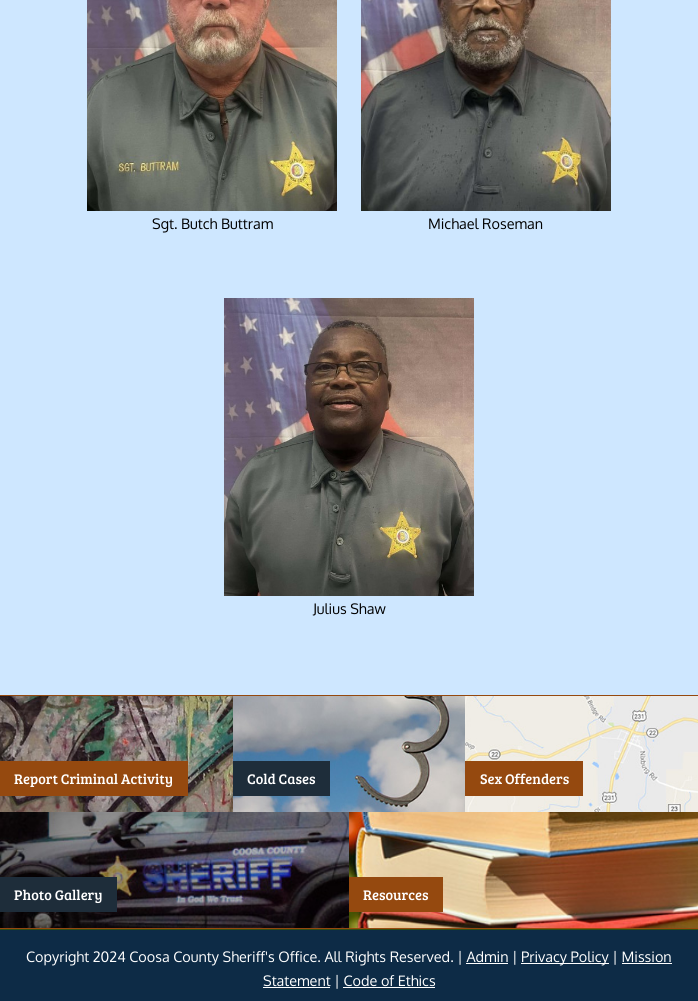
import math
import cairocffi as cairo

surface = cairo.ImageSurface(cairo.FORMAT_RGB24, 698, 1001)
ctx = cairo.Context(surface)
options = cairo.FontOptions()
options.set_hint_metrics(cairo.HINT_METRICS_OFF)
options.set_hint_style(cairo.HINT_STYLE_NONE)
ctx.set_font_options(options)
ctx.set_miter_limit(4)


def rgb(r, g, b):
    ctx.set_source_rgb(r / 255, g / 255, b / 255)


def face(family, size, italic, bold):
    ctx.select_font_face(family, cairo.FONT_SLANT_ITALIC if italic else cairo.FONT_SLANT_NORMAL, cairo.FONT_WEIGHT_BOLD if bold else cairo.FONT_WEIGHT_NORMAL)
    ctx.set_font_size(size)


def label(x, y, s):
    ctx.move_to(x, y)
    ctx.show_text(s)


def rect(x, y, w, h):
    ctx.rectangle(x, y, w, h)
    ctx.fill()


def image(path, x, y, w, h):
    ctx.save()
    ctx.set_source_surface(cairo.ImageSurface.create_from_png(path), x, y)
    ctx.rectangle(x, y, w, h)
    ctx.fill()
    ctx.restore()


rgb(13, 43, 70)
ctx.paint()
rgb(206, 231, 255)
rect(0, 0, 698, 695)
rgb(149, 73, 15)
rect(0, 695, 698, 1)
image('image0.png', 87, 0, 250, 211)
face('Oxygen', 14.4, 0, 0)
rgb(0, 0, 0)
label(152, 229, 'Sgt. Butch Buttram')
image('image1.png', 361, 0, 250, 211)
label(428, 229, 'Michael Roseman')
image('image2.png', 224, 298, 250, 298)
label(313, 614, 'Julius Shaw')
rgb(149, 73, 15)
rect(0, 928, 698, 1)
image('image3.png', 0, 696, 233, 116)
rect(0, 761, 188, 35)
face('Bree Serif', 14.4, 0, 0)
rgb(255, 255, 255)
label(14, 784, 'Report Criminal Activity')
image('image4.png', 233, 696, 232, 116)
rgb(30, 45, 58)
rect(233, 761, 97, 35)
rgb(255, 255, 255)
label(247, 784, 'Cold Cases')
image('image5.png', 465, 696, 233, 116)
rgb(149, 73, 15)
rect(465, 761, 118, 35)
rgb(255, 255, 255)
label(480, 784, 'Sex Offenders')
image('image6.png', 0, 812, 349, 116)
rgb(30, 45, 58)
rect(0, 877, 117, 35)
rgb(255, 255, 255)
label(14, 900, 'Photo Gallery')
image('image7.png', 349, 812, 349, 116)
rgb(149, 73, 15)
rect(349, 877, 94, 35)
rgb(255, 255, 255)
label(363, 900, 'Resources')
rgb(49, 76, 19)
rect(0, 929, 698, 1)
face('Oxygen', 14.4, 0, 0)
rgb(255, 255, 255)
label(26, 962, 'Copyright 2024 Coosa County Sheriff\'s Office. All Rights Reserved. | Admin |')
rect(521, 963, 88, 1)
label(521, 962, 'Privacy Policy | Mission')
rect(466, 963, 42, 1)
rect(263, 987, 67, 1)
label(263, 986, 'Statement | Code of Ethics')
rect(622, 963, 50, 1)
rect(343, 987, 92, 1)
surface.write_to_png('render.png')
